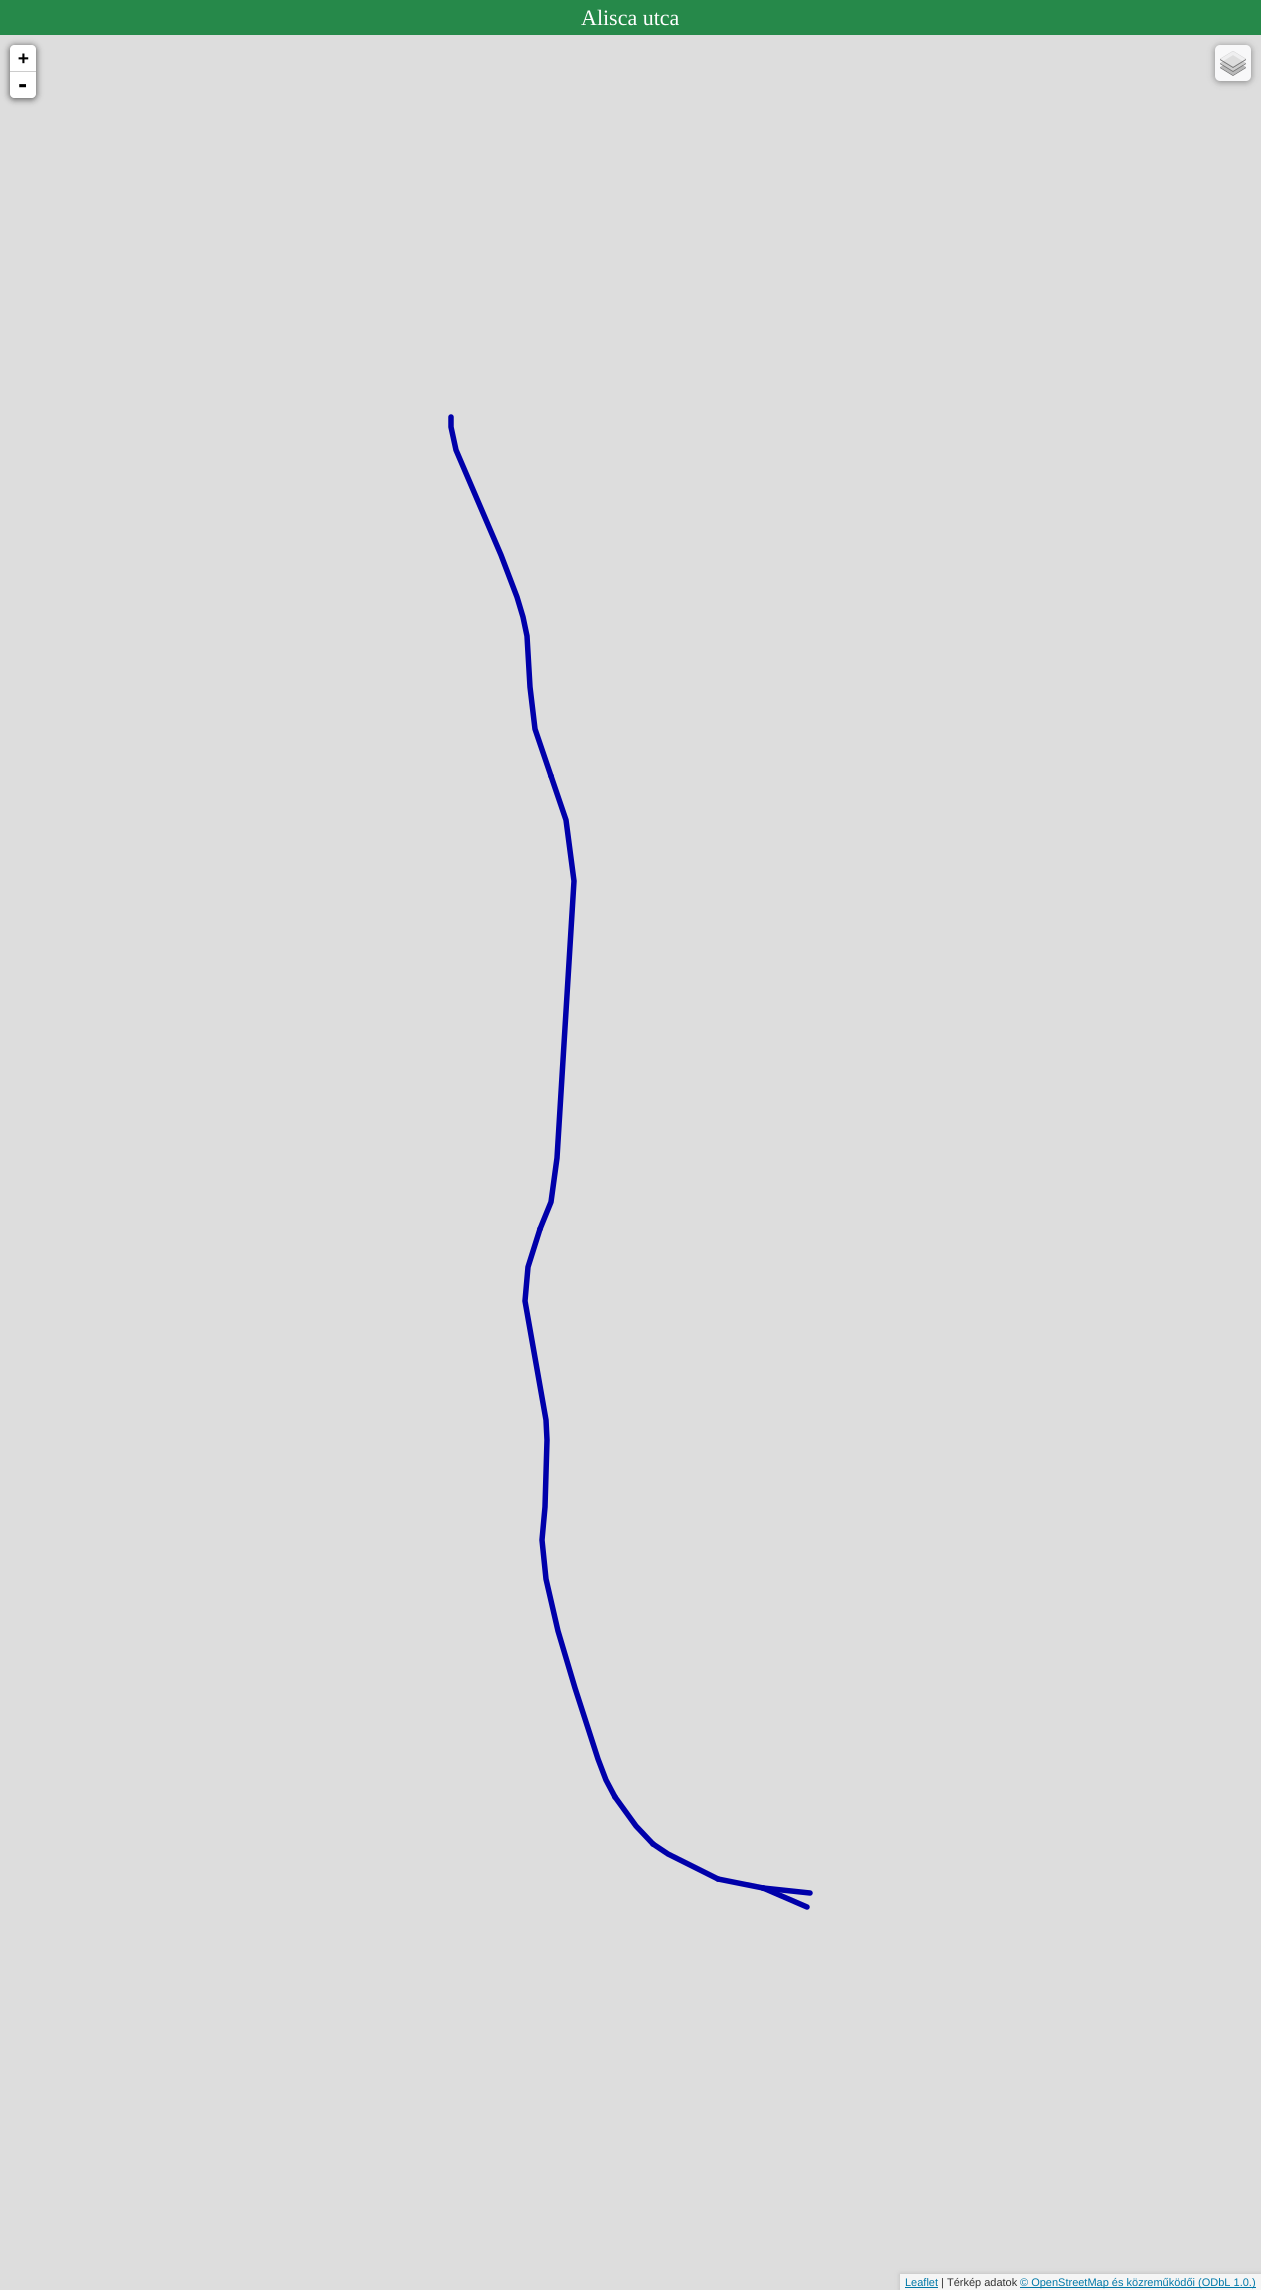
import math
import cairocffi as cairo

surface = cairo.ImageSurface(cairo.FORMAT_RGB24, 1261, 2290)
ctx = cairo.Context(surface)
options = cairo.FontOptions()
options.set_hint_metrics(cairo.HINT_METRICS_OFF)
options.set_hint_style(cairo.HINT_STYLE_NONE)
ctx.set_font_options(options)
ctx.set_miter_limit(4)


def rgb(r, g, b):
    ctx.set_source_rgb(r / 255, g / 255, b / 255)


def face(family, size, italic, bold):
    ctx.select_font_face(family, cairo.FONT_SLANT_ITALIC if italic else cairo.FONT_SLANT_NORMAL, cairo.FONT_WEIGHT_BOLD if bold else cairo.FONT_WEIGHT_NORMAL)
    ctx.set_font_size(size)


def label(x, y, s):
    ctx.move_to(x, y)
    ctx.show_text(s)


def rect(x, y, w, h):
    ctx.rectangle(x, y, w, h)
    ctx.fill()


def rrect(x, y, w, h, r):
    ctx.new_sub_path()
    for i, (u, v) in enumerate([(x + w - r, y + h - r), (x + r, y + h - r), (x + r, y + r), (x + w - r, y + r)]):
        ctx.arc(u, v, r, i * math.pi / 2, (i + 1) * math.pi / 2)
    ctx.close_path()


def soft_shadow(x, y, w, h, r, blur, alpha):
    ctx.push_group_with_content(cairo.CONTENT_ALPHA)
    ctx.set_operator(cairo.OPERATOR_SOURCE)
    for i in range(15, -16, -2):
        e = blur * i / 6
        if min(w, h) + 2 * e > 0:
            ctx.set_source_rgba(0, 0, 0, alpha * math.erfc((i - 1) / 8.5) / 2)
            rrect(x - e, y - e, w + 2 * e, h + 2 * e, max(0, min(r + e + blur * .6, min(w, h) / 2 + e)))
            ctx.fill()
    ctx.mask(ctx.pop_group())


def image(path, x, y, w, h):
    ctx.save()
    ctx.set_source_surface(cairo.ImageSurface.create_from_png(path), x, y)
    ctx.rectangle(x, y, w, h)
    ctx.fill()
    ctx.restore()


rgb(221, 221, 221)
ctx.paint()
rgb(38, 137, 74)
rect(0, 0, 1261, 35)
face('Liberation Serif', 22, 0, 0)
rgb(255, 255, 255)
label(581, 25, 'Alisca utca')
rgb(0, 0, 0)
soft_shadow(10, 46, 26, 53, 4, 3.5, 0.65)
rgb(255, 255, 255)
ctx.new_path()
ctx.move_to(14, 45)
ctx.line_to(32, 45)
ctx.curve_to(34, 45, 36, 47, 36, 49)
ctx.line_to(36, 72)
ctx.line_to(10, 72)
ctx.line_to(10, 49)
ctx.curve_to(10, 47, 12, 45, 14, 45)
ctx.close_path()
ctx.fill()
rgb(204, 204, 204)
rect(10, 71, 26, 1)
face('DejaVu Sans Mono', 18, 0, 1)
rgb(0, 0, 0)
label(18, 64, '+')
rgb(255, 255, 255)
ctx.new_path()
ctx.move_to(10, 72)
ctx.line_to(36, 72)
ctx.line_to(36, 94)
ctx.curve_to(36, 96, 34, 98, 32, 98)
ctx.line_to(14, 98)
ctx.curve_to(12, 98, 10, 96, 10, 94)
ctx.close_path()
ctx.fill()
face('DejaVu Sans Mono', 22, 0, 1)
rgb(0, 0, 0)
label(16, 92, '-')
rgb(0, 0, 0)
soft_shadow(1215, 46, 36, 36, 5, 3.5, 0.4)
rgb(248, 248, 249)
rrect(1215, 45, 36, 36, 5)
ctx.fill()
image('image0.png', 1220, 51, 26, 25)
rgb(187, 187, 187)
soft_shadow(900, 2274, 361, 16, 0, 2.5, 1)
rgb(245, 245, 245)
rect(900, 2274, 361, 16)
face('Liberation Sans', 11, 0, 0)
rgb(0, 120, 168)
label(905, 2286, 'Leaflet')
rect(905, 2287, 33, 1)
rgb(51, 51, 51)
label(941, 2286, '| Térkép adatok')
rgb(0, 120, 168)
rect(1020, 2287, 236, 1)
label(1020, 2286, '© OpenStreetMap és közreműködői (ODbL 1.0.)')
image('image1.png', 448, 414, 365, 1496)
surface.write_to_png('render.png')
